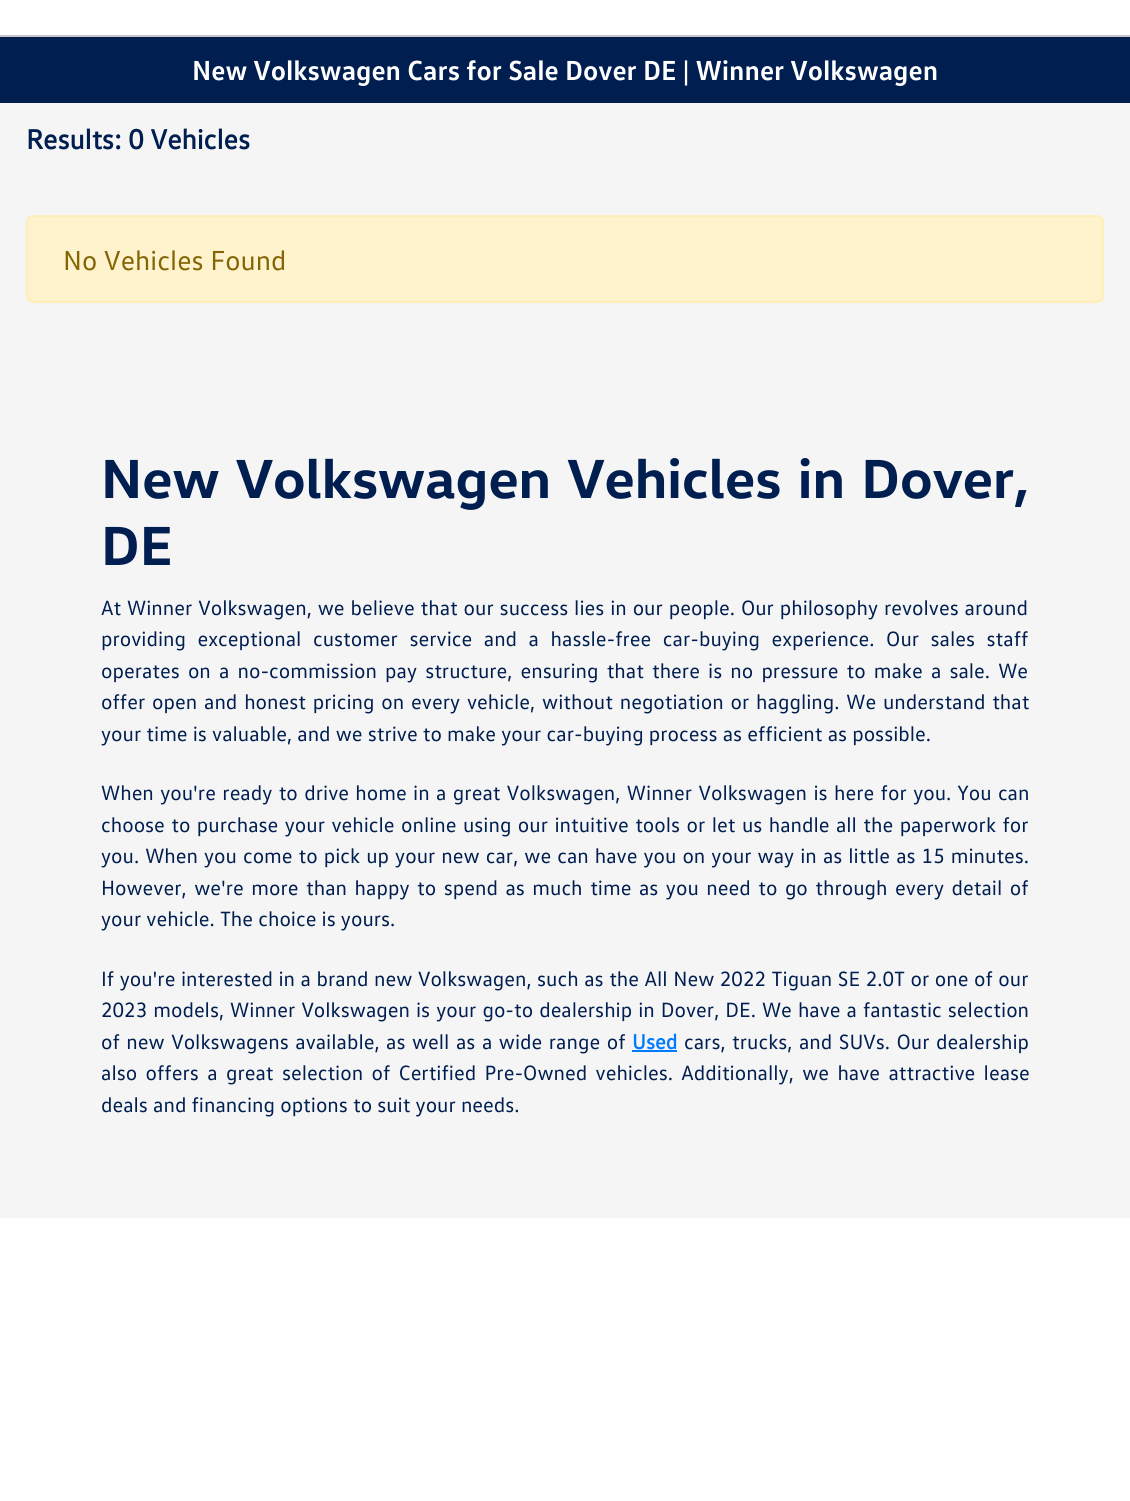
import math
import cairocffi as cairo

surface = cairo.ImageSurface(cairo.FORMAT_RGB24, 1130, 1501)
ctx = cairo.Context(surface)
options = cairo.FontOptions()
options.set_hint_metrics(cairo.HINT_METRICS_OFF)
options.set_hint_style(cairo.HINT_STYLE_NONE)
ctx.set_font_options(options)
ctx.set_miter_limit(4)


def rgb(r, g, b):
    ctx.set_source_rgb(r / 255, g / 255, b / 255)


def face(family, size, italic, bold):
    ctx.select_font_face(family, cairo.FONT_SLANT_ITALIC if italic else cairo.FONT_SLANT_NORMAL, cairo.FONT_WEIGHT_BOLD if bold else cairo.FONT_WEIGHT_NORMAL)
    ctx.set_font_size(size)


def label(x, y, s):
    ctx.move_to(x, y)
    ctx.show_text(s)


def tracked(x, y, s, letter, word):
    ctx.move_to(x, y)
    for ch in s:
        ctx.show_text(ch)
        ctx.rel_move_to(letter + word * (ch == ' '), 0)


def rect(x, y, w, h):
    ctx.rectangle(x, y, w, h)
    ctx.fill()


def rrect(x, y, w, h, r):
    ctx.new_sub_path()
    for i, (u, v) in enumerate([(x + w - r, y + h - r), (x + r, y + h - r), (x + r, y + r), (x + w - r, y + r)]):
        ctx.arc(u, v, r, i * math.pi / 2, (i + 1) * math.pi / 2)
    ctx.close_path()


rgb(255, 255, 255)
ctx.paint()
rgb(245, 245, 245)
rect(0, 103, 1130, 1115)
rgb(0, 30, 80)
rect(0, 37, 1130, 66)
rgb(198, 198, 198)
rect(0, 35, 1130, 2)
face('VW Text', 28, 0, 1)
rgb(255, 255, 255)
label(192, 80, 'New Volkswagen Cars for Sale Dover DE | Winner Volkswagen')
face('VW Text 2', 28, 0, 1)
rgb(0, 30, 80)
label(26, 149, 'Results: 0 Vehicles')
rgb(255, 243, 205)
rrect(27, 216, 1076, 86, 6)
ctx.fill_preserve()
rgb(255, 238, 186)
ctx.stroke()
face('VW Text', 28, 0, 0)
rgb(133, 100, 4)
label(63, 270, 'No Vehicles Found')
face('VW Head', 56, 0, 1)
rgb(0, 30, 80)
tracked(101, 498, 'New Volkswagen Vehicles in Dover,', 0, 3.5)
label(101, 565, 'DE')
face('VW Text', 21, 0, 0)
tracked(101, 615, 'At Winner Volkswagen, we believe that our success lies in our people. Our philosophy revolves around', 0, 0.75)
tracked(101, 646, 'providing exceptional customer service and a hassle-free car-buying experience. Our sales staff', 0, 6.4)
tracked(101, 678, 'operates on a no-commission pay structure, ensuring that there is no pressure to make a sale. We', 0, 3)
tracked(101, 709, 'offer open and honest pricing on every vehicle, without negotiation or haggling. We understand that', 0, 1.7)
label(101, 741, 'your time is valuable, and we strive to make your car-buying process as efficient as possible.')
tracked(101, 800, 'When you\'re ready to drive home in a great Volkswagen, Winner Volkswagen is here for you. You can', 0, 1.25)
tracked(101, 832, 'choose to purchase your vehicle online using our intuitive tools or let us handle all the paperwork for', 0, 1.3)
tracked(101, 863, 'you. When you come to pick up your new car, we can have you on your way in as little as 15 minutes.', 0, 0.9)
tracked(101, 895, 'However, we\'re more than happy to spend as much time as you need to go through every detail of', 0, 2.4)
label(101, 926, 'your vehicle. The choice is yours.')
tracked(101, 986, 'If you\'re interested in a brand new Volkswagen, such as the All New 2022 Tiguan SE 2.0T or one of our', 0, 0.4)
tracked(101, 1017, '2023 models, Winner Volkswagen is your go-to dealership in Dover, DE. We have a fantastic selection', 0, 0.9)
tracked(101, 1049, 'of new Volkswagens available, as well as a wide range of', 0, 1.4)
face('VW Text 2', 21, 0, 1)
rgb(0, 123, 255)
label(632, 1049, 'Used')
rect(632, 1050, 45, 2)
face('VW Text', 21, 0, 0)
rgb(0, 30, 80)
tracked(684, 1049, 'cars, trucks, and SUVs. Our dealership', 0, 1.4)
tracked(101, 1080, 'also offers a great selection of Certified Pre-Owned vehicles. Additionally, we have attractive lease', 0, 3.25)
label(101, 1112, 'deals and financing options to suit your needs.')
surface.write_to_png('render.png')
